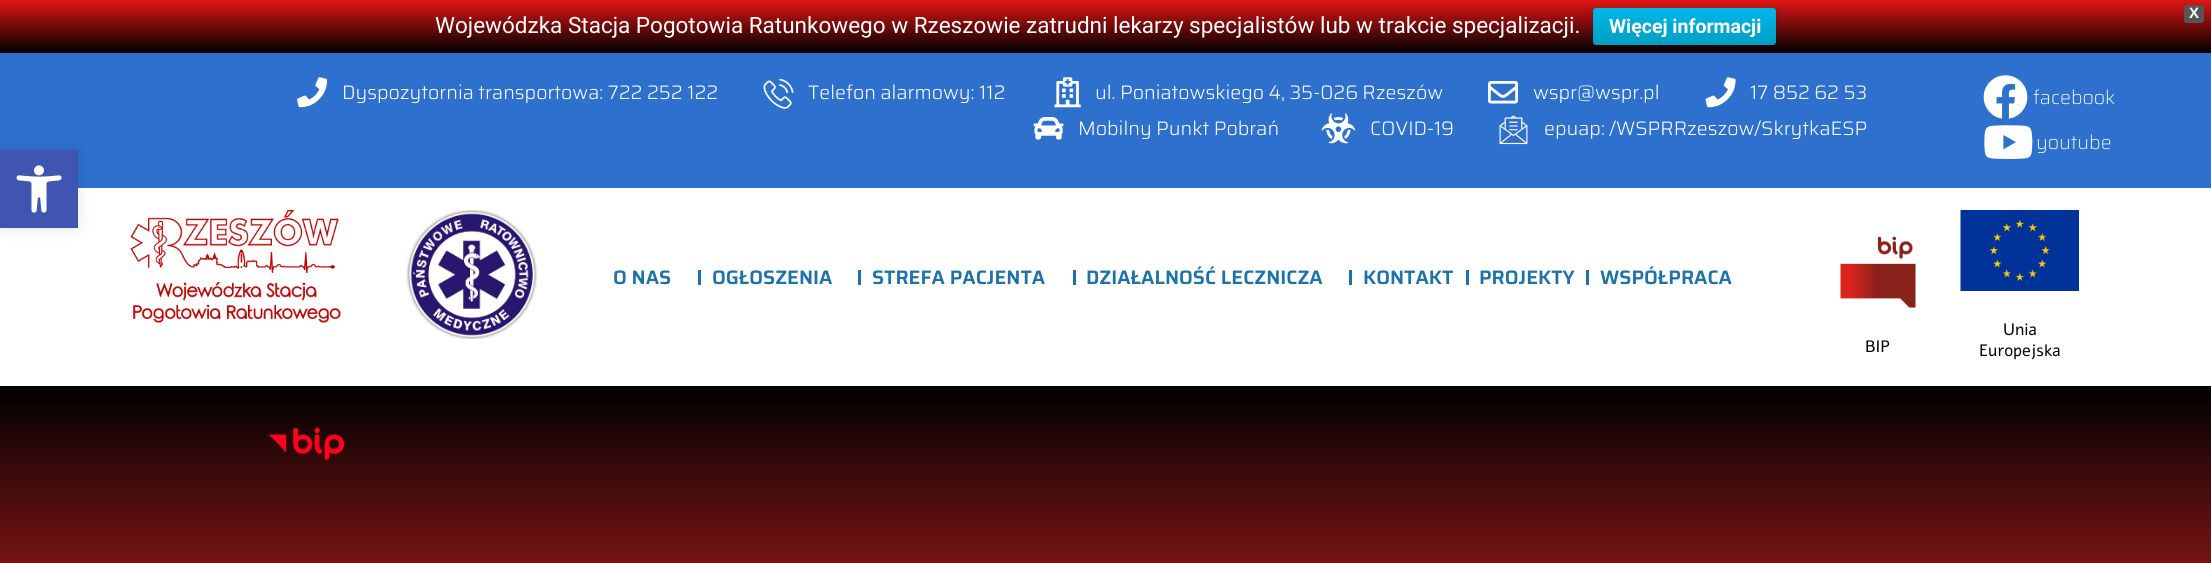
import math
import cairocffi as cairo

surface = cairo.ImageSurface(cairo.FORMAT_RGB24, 2211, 563)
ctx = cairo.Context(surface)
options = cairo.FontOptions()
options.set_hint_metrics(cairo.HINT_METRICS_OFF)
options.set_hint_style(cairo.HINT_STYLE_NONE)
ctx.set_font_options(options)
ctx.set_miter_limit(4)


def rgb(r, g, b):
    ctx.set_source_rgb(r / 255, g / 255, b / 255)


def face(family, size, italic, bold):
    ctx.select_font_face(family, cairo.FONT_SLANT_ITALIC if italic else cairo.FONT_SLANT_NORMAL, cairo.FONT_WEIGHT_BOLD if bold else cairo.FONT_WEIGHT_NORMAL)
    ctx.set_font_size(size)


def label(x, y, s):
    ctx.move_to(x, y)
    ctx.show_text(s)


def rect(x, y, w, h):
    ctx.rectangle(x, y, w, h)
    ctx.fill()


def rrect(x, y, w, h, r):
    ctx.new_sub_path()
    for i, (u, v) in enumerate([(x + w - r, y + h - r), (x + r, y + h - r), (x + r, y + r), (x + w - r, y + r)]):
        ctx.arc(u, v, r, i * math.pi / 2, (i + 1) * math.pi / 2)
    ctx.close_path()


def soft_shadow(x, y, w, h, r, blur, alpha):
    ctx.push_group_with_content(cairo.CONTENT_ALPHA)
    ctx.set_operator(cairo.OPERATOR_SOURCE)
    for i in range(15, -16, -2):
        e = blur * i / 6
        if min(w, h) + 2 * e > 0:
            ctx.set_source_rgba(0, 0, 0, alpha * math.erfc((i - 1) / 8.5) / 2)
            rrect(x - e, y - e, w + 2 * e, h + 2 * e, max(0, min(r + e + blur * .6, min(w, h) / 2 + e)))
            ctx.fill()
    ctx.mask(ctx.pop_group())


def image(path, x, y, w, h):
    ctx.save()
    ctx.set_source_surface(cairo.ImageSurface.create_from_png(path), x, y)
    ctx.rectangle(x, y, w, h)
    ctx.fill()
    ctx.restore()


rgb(255, 255, 255)
ctx.paint()
gradient = cairo.LinearGradient(1106, 0, 1106, 53)
gradient.add_color_stop_rgba(0, 0.878, 0.078, 0.078, 1)
gradient.add_color_stop_rgba(1, 0, 0, 0, 1)
ctx.set_source(gradient)
rect(0, 0, 2211, 53)
rgb(85, 85, 85)
rrect(2185, 6, 18, 16, 2)
ctx.fill_preserve()
ctx.stroke()
face('Liberation Sans', 15, 0, 1)
rgb(255, 255, 255)
label(2189, 18, 'X')
face('Roboto', 22.5, 0, 0)
label(435, 33, 'Wojewódzka Stacja Pogotowia Ratunkowego w Rzeszowie zatrudni lekarzy specjalistów lub w trakcie specjalizacji.')
rgb(0, 0, 0)
soft_shadow(1593, 9, 183, 38, 3, 1.5, 0.2)
gradient = cairo.LinearGradient(1685, 7.5, 1685, 45)
gradient.add_color_stop_rgba(0, 0, 0.718, 0.918, 1)
gradient.add_color_stop_rgba(1, 0, 0.62, 0.765, 1)
ctx.set_source(gradient)
rrect(1593, 8, 183, 37, 3)
ctx.fill()
face('Roboto', 19.5, 0, 1)
rgb(255, 255, 255)
label(1609, 33, 'Więcej informacji')
rgb(46, 112, 206)
rect(0, 53, 2211, 135)
rgb(0, 0, 0)
soft_shadow(0, 150, 78, 78, 0, 7.5, 0.1)
rgb(64, 84, 178)
rect(0, 150, 78, 78)
image('image0.png', 16, 165, 46, 48)
image('image1.png', 297, 77, 31, 31)
face('Saira Light', 19.5, 0, 0)
rgb(255, 255, 255)
label(342, 99, 'Dyspozytornia transportowa: 722 252 122')
image('image2.png', 763, 78, 31, 31)
label(808, 99, 'Telefon alarmowy: 112')
image('image3.png', 1054, 77, 27, 31)
label(1095, 99, 'ul. Poniatowskiego 4, 35-026 Rzeszów')
image('image4.png', 1488, 81, 30, 23)
label(1533, 99, 'wspr@wspr.pl')
image('image5.png', 1705, 77, 31, 31)
label(1750, 99, '17 852 62 53')
image('image6.png', 1033, 117, 31, 23)
label(1078, 135, 'Mobilny Punkt Pobrań')
image('image7.png', 1321, 113, 35, 31)
label(1370, 135, 'COVID-19')
image('image8.png', 1499, 115, 29, 30)
label(1544, 135, 'epuap: /WSPRRzeszow/SkrytkaESP')
image('image9.png', 1983, 75, 45, 44)
face('Saira ExtraLight', 19.5, 0, 0)
label(2033, 104, 'facebook')
image('image10.png', 1984, 125, 49, 34)
label(2036, 149, 'youtube')
image('image11.png', 130, 210, 211, 113)
image('image12.png', 406, 210, 132, 129)
face('Saira SemiBold', 19.5, 0, 0)
rgb(29, 114, 170)
label(613, 284, 'O NAS')
rect(698, 270, 3, 15)
label(712, 284, 'OGŁOSZENIA')
rect(858, 270, 3, 15)
label(872, 284, 'STREFA PACJENTA')
rect(1073, 270, 3, 15)
label(1086, 284, 'DZIAŁALNOŚĆ LECZNICZA')
rect(1349, 270, 3, 15)
label(1363, 284, 'KONTAKT')
rect(1466, 270, 3, 15)
label(1479, 284, 'PROJEKTY')
rect(1586, 270, 3, 15)
label(1600, 284, 'WSPÓŁPRACA')
image('image13.png', 1840, 236, 76, 72)
face('Alef', 16.5, 0, 0)
rgb(0, 0, 0)
label(1865, 352, 'BIP')
image('image14.png', 1960, 210, 119, 81)
label(2003, 335, 'Unia')
label(1979, 356, 'Europejska')
gradient = cairo.LinearGradient(1106, 385, 1106, 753)
gradient.add_color_stop_rgba(0, 0, 0, 0, 1)
gradient.add_color_stop_rgba(1, 0.949, 0.161, 0.161, 1)
ctx.set_source(gradient)
rect(0, 386, 2211, 177)
image('image15.png', 269, 427, 76, 34)
surface.write_to_png('render.png')
